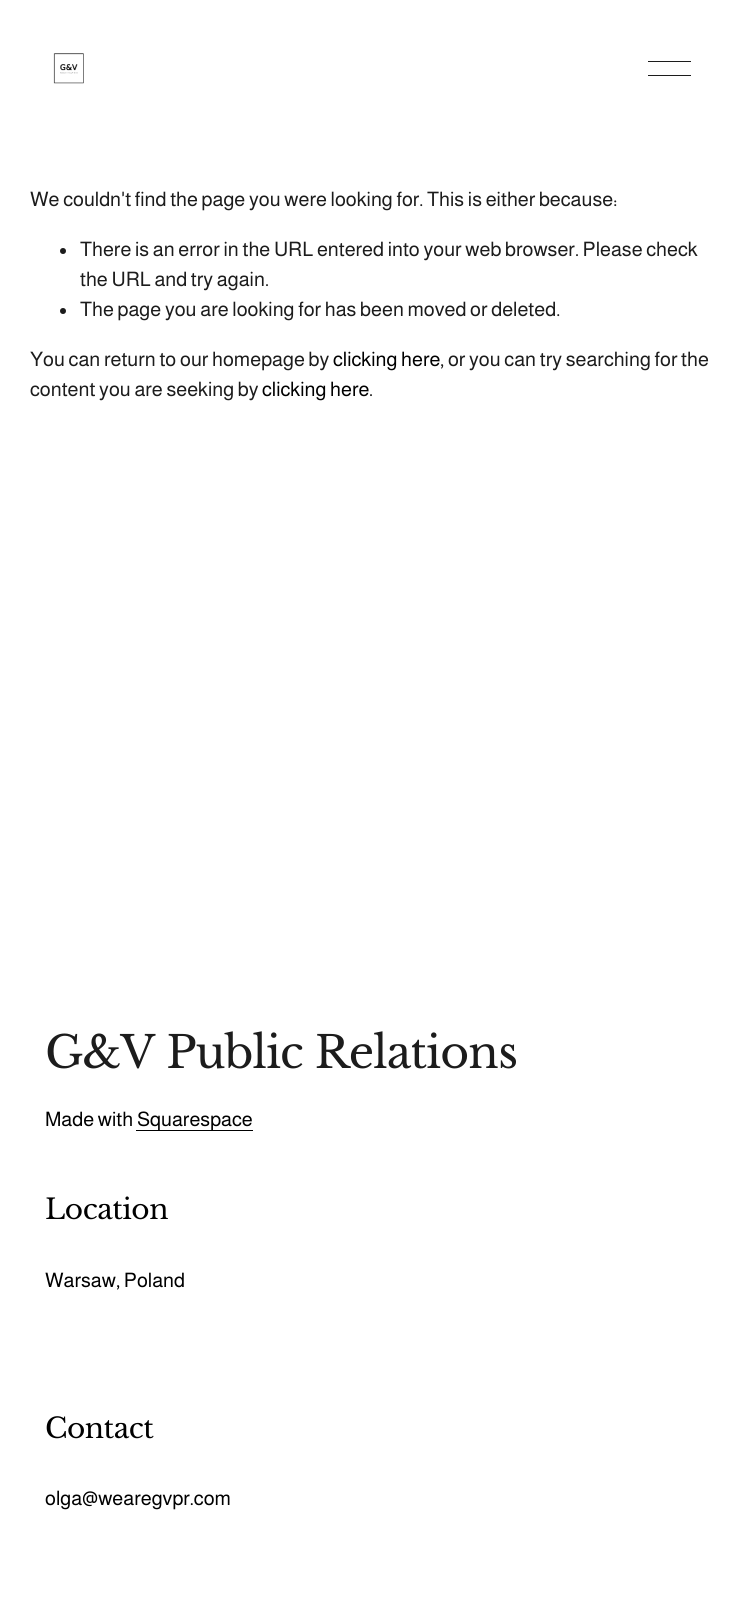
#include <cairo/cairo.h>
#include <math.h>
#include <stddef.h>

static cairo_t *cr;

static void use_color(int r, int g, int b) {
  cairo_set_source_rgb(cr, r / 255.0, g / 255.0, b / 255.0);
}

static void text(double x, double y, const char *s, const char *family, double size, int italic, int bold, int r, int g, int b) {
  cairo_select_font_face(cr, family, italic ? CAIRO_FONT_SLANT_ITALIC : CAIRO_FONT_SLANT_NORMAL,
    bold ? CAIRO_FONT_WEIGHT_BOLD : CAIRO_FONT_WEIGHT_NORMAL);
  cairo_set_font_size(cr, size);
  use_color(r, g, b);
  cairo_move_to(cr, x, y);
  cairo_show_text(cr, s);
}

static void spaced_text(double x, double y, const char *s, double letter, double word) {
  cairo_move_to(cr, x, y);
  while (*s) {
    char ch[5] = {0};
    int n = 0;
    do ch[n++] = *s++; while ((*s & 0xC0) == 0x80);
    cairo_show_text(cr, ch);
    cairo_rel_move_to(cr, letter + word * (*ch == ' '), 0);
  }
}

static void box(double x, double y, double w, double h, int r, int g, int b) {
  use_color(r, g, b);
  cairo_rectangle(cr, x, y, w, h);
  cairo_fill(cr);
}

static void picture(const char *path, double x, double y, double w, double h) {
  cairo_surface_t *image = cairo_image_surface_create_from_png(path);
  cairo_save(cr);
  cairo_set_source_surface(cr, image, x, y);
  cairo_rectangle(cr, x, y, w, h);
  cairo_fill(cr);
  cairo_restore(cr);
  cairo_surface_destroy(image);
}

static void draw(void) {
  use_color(255, 255, 255);
  cairo_paint(cr);
  picture("img_01.png", 53, 53, 31, 31);
  box(648, 61, 43, 1, 28, 28, 28);
  box(648, 75, 43, 1, 28, 28, 28);
  cairo_arc(cr, 63, 251, 3, 0, 2 * M_PI);
  cairo_fill(cr);
  cairo_arc(cr, 63, 311, 3, 0, 2 * M_PI);
  cairo_fill(cr);
  box(136, 1130, 117, 1, 0, 0, 0);
  text(30, 206, "We couldn't find the page you were looking for. This is either because:", "Almarai", 20, 0, 0, 28, 28, 28);
  text(80, 256, "There is an error in the URL entered into your web browser. Please check", "Almarai", 20, 0, 0, 28, 28, 28);
  text(80, 286, "the URL and try again.", "Almarai", 20, 0, 0, 28, 28, 28);
  text(80, 316, "The page you are looking for has been moved or deleted.", "Almarai", 20, 0, 0, 28, 28, 28);
  text(30, 366, "You can return to our homepage by", "Almarai", 20, 0, 0, 28, 28, 28);
  text(333, 366, "clicking here", "Almarai", 20, 0, 0, 0, 0, 0);
  text(440, 366, ", or you can try searching for the", "Almarai", 20, 0, 0, 28, 28, 28);
  text(30, 396, "content you are seeking by", "Almarai", 20, 0, 0, 28, 28, 28);
  text(262, 396, "clicking here", "Almarai", 20, 0, 0, 0, 0, 0);
  text(369, 396, ".", "Almarai", 20, 0, 0, 28, 28, 28);
  cairo_select_font_face(cr, "Libre Baskerville", CAIRO_FONT_SLANT_NORMAL, CAIRO_FONT_WEIGHT_NORMAL);
  cairo_set_font_size(cr, 44.25);
  spaced_text(45, 1068, "G&V Public Relations", -0.9, 0);
  text(45, 1126, "Made with", "Almarai", 20, 0, 0, 0, 0, 0);
  text(137, 1126, "Squarespace", "Almarai", 20, 0, 0, 0, 0, 0);
  cairo_select_font_face(cr, "Libre Baskerville", CAIRO_FONT_SLANT_NORMAL, CAIRO_FONT_WEIGHT_NORMAL);
  cairo_set_font_size(cr, 28);
  spaced_text(45, 1219, "Location", -0.5, 0);
  text(45, 1287, "Warsaw, Poland", "Almarai", 20, 0, 0, 0, 0, 0);
  cairo_select_font_face(cr, "Libre Baskerville", CAIRO_FONT_SLANT_NORMAL, CAIRO_FONT_WEIGHT_NORMAL);
  cairo_set_font_size(cr, 28);
  spaced_text(45, 1438, "Contact", -0.5, 0);
  text(45, 1505, "olga@wearegvpr.com", "Almarai", 20, 0, 0, 0, 0, 0);
}

int main(void) {
  cairo_surface_t *surface = cairo_image_surface_create(CAIRO_FORMAT_RGB24, 743, 1616);
  cr = cairo_create(surface);
  cairo_font_options_t *options = cairo_font_options_create();
  cairo_font_options_set_hint_metrics(options, CAIRO_HINT_METRICS_OFF);
  cairo_font_options_set_hint_style(options, CAIRO_HINT_STYLE_NONE);
  cairo_set_font_options(cr, options);
  cairo_set_miter_limit(cr, 4);
  draw();
  cairo_surface_write_to_png(surface, "out.png");
  cairo_font_options_destroy(options);
  cairo_destroy(cr);
  cairo_surface_destroy(surface);
  return 0;
}
